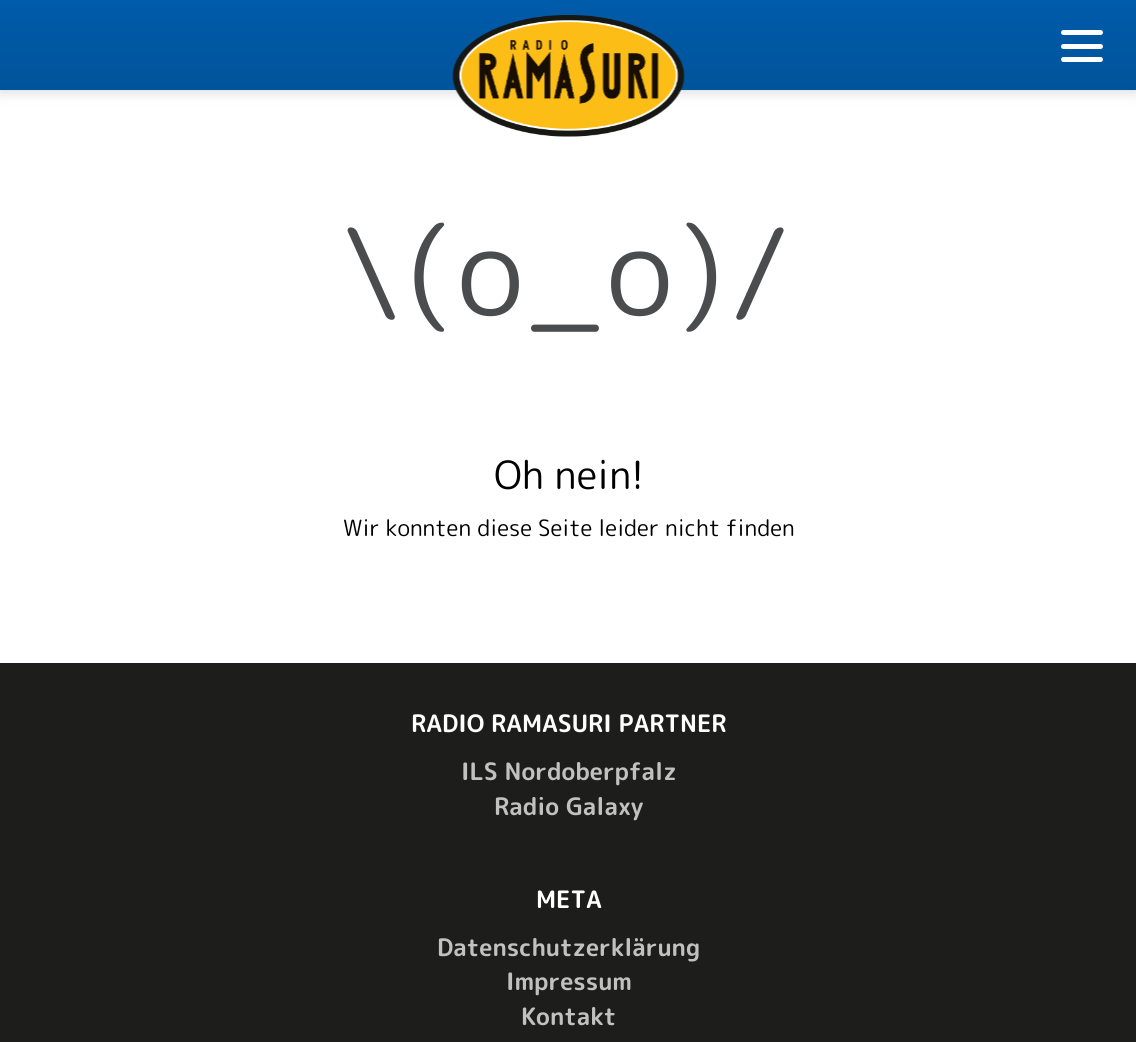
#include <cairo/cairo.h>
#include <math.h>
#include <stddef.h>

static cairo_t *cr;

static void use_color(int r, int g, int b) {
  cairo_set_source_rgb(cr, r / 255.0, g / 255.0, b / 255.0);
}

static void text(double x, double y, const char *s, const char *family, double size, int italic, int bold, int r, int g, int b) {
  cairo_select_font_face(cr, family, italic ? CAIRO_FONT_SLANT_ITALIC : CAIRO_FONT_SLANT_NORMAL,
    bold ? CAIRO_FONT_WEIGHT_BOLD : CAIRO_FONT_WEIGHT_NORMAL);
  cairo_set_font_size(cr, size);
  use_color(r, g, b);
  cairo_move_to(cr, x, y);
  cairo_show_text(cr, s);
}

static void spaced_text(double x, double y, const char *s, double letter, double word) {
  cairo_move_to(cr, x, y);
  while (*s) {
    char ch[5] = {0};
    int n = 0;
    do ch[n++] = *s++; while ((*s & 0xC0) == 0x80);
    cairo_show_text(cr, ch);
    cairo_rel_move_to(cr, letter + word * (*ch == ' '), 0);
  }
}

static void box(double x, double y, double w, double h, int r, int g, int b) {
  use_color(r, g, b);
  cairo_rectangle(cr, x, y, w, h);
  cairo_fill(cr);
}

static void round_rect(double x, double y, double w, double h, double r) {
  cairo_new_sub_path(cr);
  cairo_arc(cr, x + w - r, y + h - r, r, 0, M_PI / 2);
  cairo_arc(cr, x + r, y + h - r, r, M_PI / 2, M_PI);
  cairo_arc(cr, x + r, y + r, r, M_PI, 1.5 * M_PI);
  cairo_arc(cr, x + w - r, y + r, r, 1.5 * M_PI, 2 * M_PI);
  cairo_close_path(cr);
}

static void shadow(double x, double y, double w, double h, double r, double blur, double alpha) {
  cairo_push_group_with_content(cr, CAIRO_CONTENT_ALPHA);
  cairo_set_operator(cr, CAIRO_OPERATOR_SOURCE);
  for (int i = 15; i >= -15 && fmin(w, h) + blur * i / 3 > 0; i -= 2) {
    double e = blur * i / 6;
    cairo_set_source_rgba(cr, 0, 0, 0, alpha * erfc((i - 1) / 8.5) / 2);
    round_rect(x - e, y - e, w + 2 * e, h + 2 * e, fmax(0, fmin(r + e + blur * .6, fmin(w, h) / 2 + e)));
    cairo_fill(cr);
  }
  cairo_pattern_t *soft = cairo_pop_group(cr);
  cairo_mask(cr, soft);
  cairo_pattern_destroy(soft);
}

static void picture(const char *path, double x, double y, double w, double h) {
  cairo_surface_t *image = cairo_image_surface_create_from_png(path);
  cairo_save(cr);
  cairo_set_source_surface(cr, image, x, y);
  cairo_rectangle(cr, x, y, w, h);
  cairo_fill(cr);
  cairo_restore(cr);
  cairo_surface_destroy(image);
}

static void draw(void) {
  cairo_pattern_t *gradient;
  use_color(255, 255, 255);
  cairo_paint(cr);
  use_color(0, 0, 0);
  shadow(0, 0, 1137, 90, 0, 7.5, 0.2);
  gradient = cairo_pattern_create_linear(569, 0, 569, 90);
  cairo_pattern_add_color_stop_rgba(gradient, 0, 0, 0.357, 0.667, 1);
  cairo_pattern_add_color_stop_rgba(gradient, 1, 0, 0.329, 0.608, 1);
  cairo_set_source(cr, gradient);
  cairo_pattern_destroy(gradient);
  cairo_rectangle(cr, 0, 0, 1136, 90);
  cairo_fill(cr);
  picture("img_01.png", 452, 15, 233, 122);
  use_color(255, 255, 255);
  round_rect(1061, 30, 42, 5, 2.5);
  cairo_fill(cr);
  round_rect(1061, 44, 42, 5, 2.5);
  cairo_fill(cr);
  round_rect(1061, 57, 42, 5, 2.5);
  cairo_fill(cr);
  box(0, 663, 1136, 379, 29, 29, 27);
  cairo_select_font_face(cr, "Rounded Mplus 1c", CAIRO_FONT_SLANT_NORMAL, CAIRO_FONT_WEIGHT_NORMAL);
  cairo_set_font_size(cr, 120);
  use_color(75, 76, 77);
  spaced_text(341, 315, "\\(o_o)/", 7.5, 0);
  text(494, 489, "Oh nein!", "Rounded Mplus 1c", 39, 0, 0, 0, 0, 0);
  text(343, 536, "Wir konnten diese Seite leider nicht finden", "Rounded Mplus 1c", 22.5, 0, 0, 0, 0, 0);
  text(411, 732, "RADIO RAMASURI PARTNER", "Rounded Mplus 1c", 24, 0, 1, 255, 255, 255);
  text(461, 780, "ILS Nordoberpfalz", "Rounded Mplus 1c", 24, 0, 1, 193, 193, 193);
  text(494, 815, "Radio Galaxy", "Rounded Mplus 1c", 24, 0, 1, 193, 193, 193);
  text(536, 908, "META", "Rounded Mplus 1c", 24, 0, 1, 255, 255, 255);
  text(437, 956, "Datenschutzerklärung", "Rounded Mplus 1c", 24, 0, 1, 193, 193, 193);
  text(506, 990, "Impressum", "Rounded Mplus 1c", 24, 0, 1, 193, 193, 193);
  text(521, 1025, "Kontakt", "Rounded Mplus 1c", 24, 0, 1, 193, 193, 193);
}

int main(void) {
  cairo_surface_t *surface = cairo_image_surface_create(CAIRO_FORMAT_RGB24, 1136, 1042);
  cr = cairo_create(surface);
  cairo_font_options_t *options = cairo_font_options_create();
  cairo_font_options_set_hint_metrics(options, CAIRO_HINT_METRICS_OFF);
  cairo_font_options_set_hint_style(options, CAIRO_HINT_STYLE_NONE);
  cairo_set_font_options(cr, options);
  cairo_set_miter_limit(cr, 4);
  draw();
  cairo_surface_write_to_png(surface, "out.png");
  cairo_font_options_destroy(options);
  cairo_destroy(cr);
  cairo_surface_destroy(surface);
  return 0;
}
